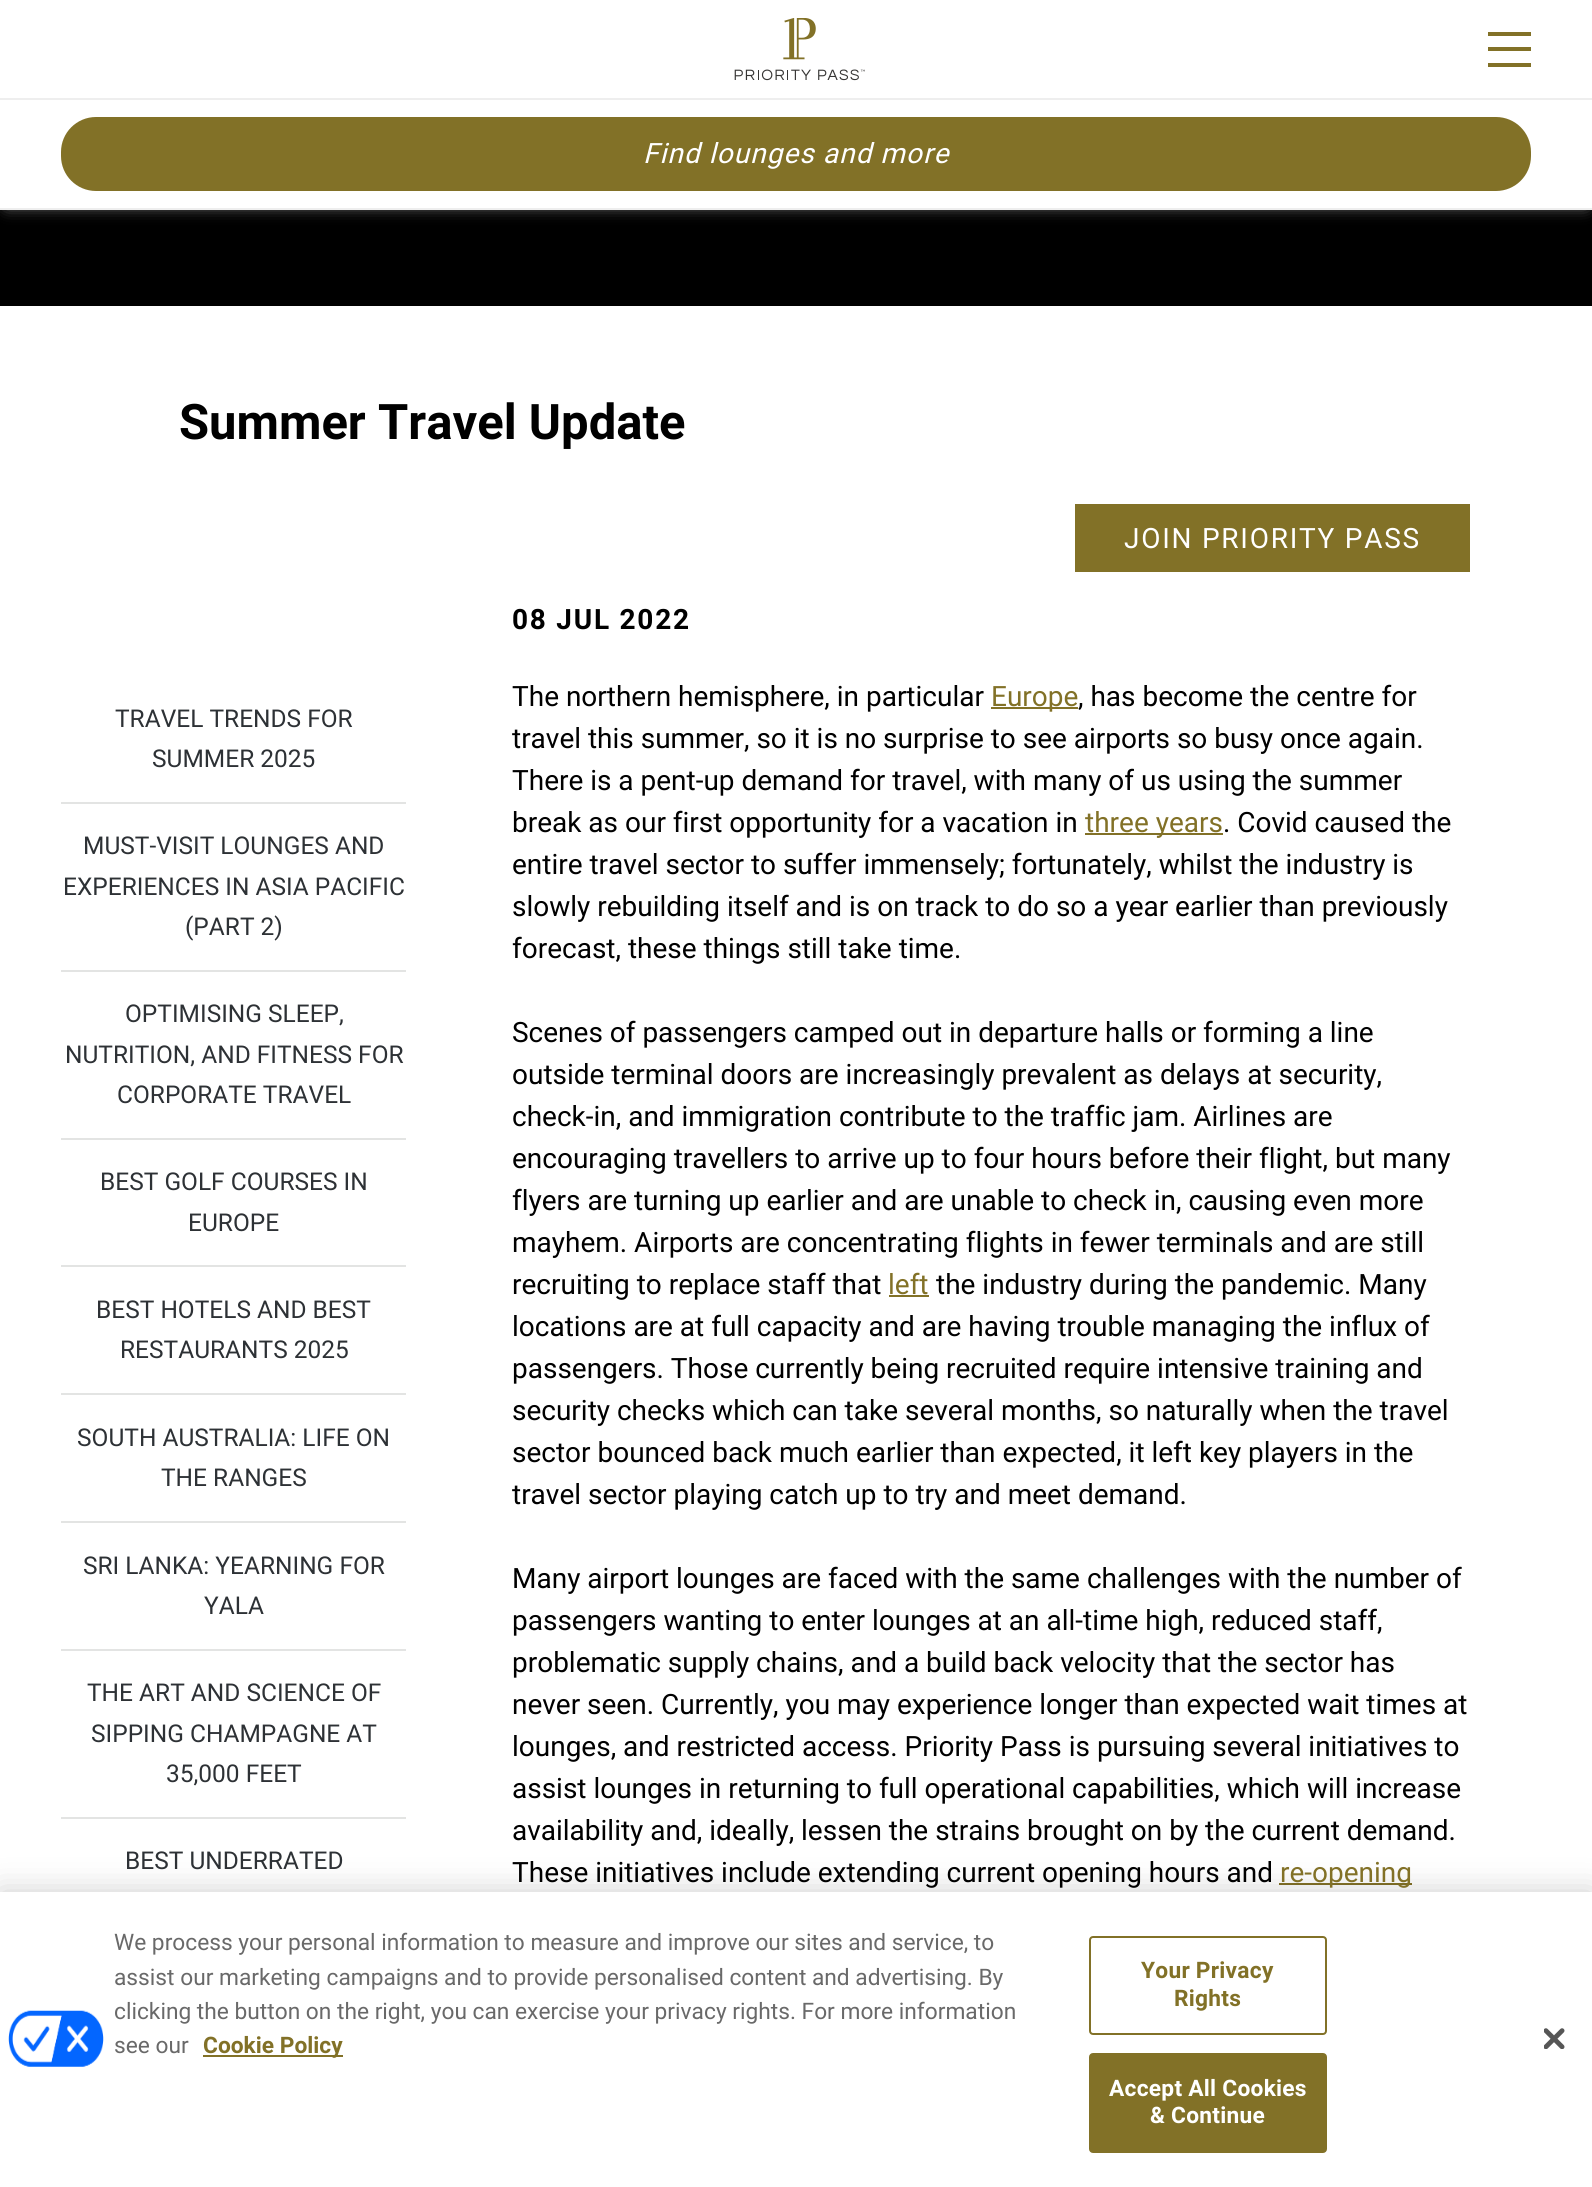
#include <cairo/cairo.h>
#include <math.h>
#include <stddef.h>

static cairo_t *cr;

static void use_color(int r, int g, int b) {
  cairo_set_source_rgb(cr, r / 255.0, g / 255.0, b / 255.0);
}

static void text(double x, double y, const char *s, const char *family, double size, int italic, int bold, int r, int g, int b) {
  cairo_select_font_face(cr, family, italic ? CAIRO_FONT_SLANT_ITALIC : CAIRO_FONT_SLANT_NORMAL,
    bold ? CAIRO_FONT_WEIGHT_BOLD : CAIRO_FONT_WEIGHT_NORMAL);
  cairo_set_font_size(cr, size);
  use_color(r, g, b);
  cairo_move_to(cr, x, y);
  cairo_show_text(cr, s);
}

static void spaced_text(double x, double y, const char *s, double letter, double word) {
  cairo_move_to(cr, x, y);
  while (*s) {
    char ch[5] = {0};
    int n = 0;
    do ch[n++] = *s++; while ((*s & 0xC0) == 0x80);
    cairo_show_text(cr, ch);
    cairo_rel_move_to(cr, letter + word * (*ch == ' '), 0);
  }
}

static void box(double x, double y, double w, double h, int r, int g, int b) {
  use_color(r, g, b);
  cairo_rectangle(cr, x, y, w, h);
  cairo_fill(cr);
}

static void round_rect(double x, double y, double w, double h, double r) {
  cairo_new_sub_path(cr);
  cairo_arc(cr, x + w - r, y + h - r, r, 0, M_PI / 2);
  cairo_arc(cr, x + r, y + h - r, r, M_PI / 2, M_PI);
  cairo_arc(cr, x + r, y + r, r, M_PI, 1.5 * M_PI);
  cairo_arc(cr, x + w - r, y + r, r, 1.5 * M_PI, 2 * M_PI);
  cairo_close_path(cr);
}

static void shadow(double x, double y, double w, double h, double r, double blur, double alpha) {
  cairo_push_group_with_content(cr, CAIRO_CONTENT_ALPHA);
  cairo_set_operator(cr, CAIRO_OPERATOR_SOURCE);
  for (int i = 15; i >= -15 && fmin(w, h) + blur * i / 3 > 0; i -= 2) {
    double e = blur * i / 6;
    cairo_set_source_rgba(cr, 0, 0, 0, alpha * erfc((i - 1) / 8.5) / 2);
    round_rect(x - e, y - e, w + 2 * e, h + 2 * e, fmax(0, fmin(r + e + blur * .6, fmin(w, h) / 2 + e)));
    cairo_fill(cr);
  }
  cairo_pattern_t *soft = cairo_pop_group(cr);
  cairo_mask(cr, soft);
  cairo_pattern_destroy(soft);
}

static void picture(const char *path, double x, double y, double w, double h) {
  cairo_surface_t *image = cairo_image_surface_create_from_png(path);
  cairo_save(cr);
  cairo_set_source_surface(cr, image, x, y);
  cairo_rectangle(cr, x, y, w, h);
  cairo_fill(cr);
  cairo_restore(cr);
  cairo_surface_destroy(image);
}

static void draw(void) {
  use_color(255, 255, 255);
  cairo_paint(cr);
  box(0, 210, 1592, 96, 0, 0, 0);
  use_color(169, 169, 169);
  shadow(7, 9, 1579, 196, 0, 8, 1);
  box(0, 0, 1592, 208, 255, 255, 255);
  box(0, 208, 1592, 2, 238, 238, 238);
  picture("img_01.png", 734, 18, 131, 63);
  box(1488, 32, 43, 4, 130, 113, 39);
  box(1488, 47, 43, 4, 130, 113, 39);
  box(1488, 63, 43, 4, 130, 113, 39);
  box(0, 98, 1592, 2, 238, 238, 238);
  use_color(130, 113, 39);
  round_rect(61, 117, 1470, 74, 35);
  cairo_fill(cr);
  box(1075, 504, 395, 68, 130, 113, 39);
  box(61, 802, 345, 2, 227, 228, 227);
  box(61, 970, 345, 2, 227, 228, 227);
  box(61, 1138, 345, 2, 227, 228, 227);
  box(61, 1265, 345, 2, 227, 228, 227);
  box(61, 1393, 345, 2, 227, 228, 227);
  box(61, 1521, 345, 2, 227, 228, 227);
  box(61, 1649, 345, 2, 227, 228, 227);
  box(61, 1817, 345, 2, 227, 228, 227);
  box(991, 707, 87, 2, 130, 113, 39);
  box(1085, 833, 138, 2, 130, 113, 39);
  box(889, 1295, 40, 2, 130, 113, 39);
  box(1279, 1883, 133, 2, 130, 113, 39);
  use_color(0, 0, 0);
  shadow(0, 1892, 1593, 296, 0, 16, 0.2);
  box(0, 1892, 1592, 295, 255, 255, 255);
  picture("img_02.png", 8, 2010, 96, 57);
  box(203, 2055, 140, 2, 130, 113, 39);
  round_rect(1090, 1937, 236, 97, 3);
  cairo_stroke(cr);
  round_rect(1090, 2054, 236, 98, 3);
  cairo_fill_preserve(cr);
  cairo_stroke(cr);
  picture("img_03.png", 1544, 2028, 21, 21);
  cairo_select_font_face(cr, "Roboto", CAIRO_FONT_SLANT_ITALIC, CAIRO_FONT_WEIGHT_NORMAL);
  cairo_set_font_size(cr, 28);
  use_color(255, 255, 255);
  spaced_text(643, 163, "Find lounges and more", 1.05, 0);
  text(179, 439, "Summer Travel Update", "Roboto", 49, 0, 1, 0, 0, 0);
  cairo_select_font_face(cr, "Roboto", CAIRO_FONT_SLANT_NORMAL, CAIRO_FONT_WEIGHT_NORMAL);
  cairo_set_font_size(cr, 28);
  use_color(255, 255, 255);
  spaced_text(1124, 548, "JOIN PRIORITY PASS", 1.75, 0);
  cairo_select_font_face(cr, "Roboto", CAIRO_FONT_SLANT_NORMAL, CAIRO_FONT_WEIGHT_BOLD);
  use_color(0, 0, 0);
  spaced_text(512, 629, "08 JUL 2022", 1.75, 0);
  text(115, 727, "TRAVEL TRENDS FOR", "Roboto", 24.5, 0, 0, 45, 49, 53);
  text(152, 767, "SUMMER 2025", "Roboto", 24.5, 0, 0, 45, 49, 53);
  text(83, 854, "MUST-VISIT LOUNGES AND", "Roboto", 24.5, 0, 0, 45, 49, 53);
  text(63, 895, "EXPERIENCES IN ASIA PACIFIC", "Roboto", 24.5, 0, 0, 45, 49, 53);
  text(185, 935, "(PART 2)", "Roboto", 24.5, 0, 0, 45, 49, 53);
  text(125, 1022, "OPTIMISING SLEEP,", "Roboto", 24.5, 0, 0, 45, 49, 53);
  text(65, 1063, "NUTRITION, AND FITNESS FOR", "Roboto", 24.5, 0, 0, 45, 49, 53);
  text(117, 1103, "CORPORATE TRAVEL", "Roboto", 24.5, 0, 0, 45, 49, 53);
  text(100, 1190, "BEST GOLF COURSES IN", "Roboto", 24.5, 0, 0, 45, 49, 53);
  text(188, 1231, "EUROPE", "Roboto", 24.5, 0, 0, 45, 49, 53);
  text(96, 1318, "BEST HOTELS AND BEST", "Roboto", 24.5, 0, 0, 45, 49, 53);
  text(120, 1358, "RESTAURANTS 2025", "Roboto", 24.5, 0, 0, 45, 49, 53);
  text(77, 1446, "SOUTH AUSTRALIA: LIFE ON", "Roboto", 24.5, 0, 0, 45, 49, 53);
  text(161, 1486, "THE RANGES", "Roboto", 24.5, 0, 0, 45, 49, 53);
  text(83, 1574, "SRI LANKA: YEARNING FOR", "Roboto", 24.5, 0, 0, 45, 49, 53);
  text(204, 1614, "YALA", "Roboto", 24.5, 0, 0, 45, 49, 53);
  text(87, 1701, "THE ART AND SCIENCE OF", "Roboto", 24.5, 0, 0, 45, 49, 53);
  text(91, 1742, "SIPPING CHAMPAGNE AT", "Roboto", 24.5, 0, 0, 45, 49, 53);
  text(166, 1782, "35,000 FEET", "Roboto", 24.5, 0, 0, 45, 49, 53);
  text(125, 1869, "BEST UNDERRATED", "Roboto", 24.5, 0, 0, 45, 49, 53);
  text(512, 706, "The northern hemisphere, in particular", "Roboto", 28, 0, 0, 0, 0, 0);
  text(991, 706, "Europe", "Roboto", 28, 0, 0, 130, 113, 39);
  text(1078, 706, ", has become the centre for", "Roboto", 28, 0, 0, 0, 0, 0);
  text(512, 748, "travel this summer, so it is no surprise to see airports so busy once again.", "Roboto", 28, 0, 0, 0, 0, 0);
  text(512, 790, "There is a pent-up demand for travel, with many of us using the summer", "Roboto", 28, 0, 0, 0, 0, 0);
  text(512, 832, "break as our first opportunity for a vacation in", "Roboto", 28, 0, 0, 0, 0, 0);
  text(1085, 832, "three years", "Roboto", 28, 0, 0, 130, 113, 39);
  text(1223, 832, ". Covid caused the", "Roboto", 28, 0, 0, 0, 0, 0);
  text(512, 874, "entire travel sector to suffer immensely; fortunately, whilst the industry is", "Roboto", 28, 0, 0, 0, 0, 0);
  text(512, 916, "slowly rebuilding itself and is on track to do so a year earlier than previously", "Roboto", 28, 0, 0, 0, 0, 0);
  text(512, 958, "forecast, these things still take time.", "Roboto", 28, 0, 0, 0, 0, 0);
  text(512, 1042, "Scenes of passengers camped out in departure halls or forming a line", "Roboto", 28, 0, 0, 0, 0, 0);
  text(512, 1084, "outside terminal doors are increasingly prevalent as delays at security,", "Roboto", 28, 0, 0, 0, 0, 0);
  text(512, 1126, "check-in, and immigration contribute to the traffic jam. Airlines are", "Roboto", 28, 0, 0, 0, 0, 0);
  text(512, 1168, "encouraging travellers to arrive up to four hours before their flight, but many", "Roboto", 28, 0, 0, 0, 0, 0);
  text(512, 1210, "flyers are turning up earlier and are unable to check in, causing even more", "Roboto", 28, 0, 0, 0, 0, 0);
  text(512, 1252, "mayhem. Airports are concentrating flights in fewer terminals and are still", "Roboto", 28, 0, 0, 0, 0, 0);
  text(512, 1294, "recruiting to replace staff that", "Roboto", 28, 0, 0, 0, 0, 0);
  text(888, 1294, "left", "Roboto", 28, 0, 0, 130, 113, 39);
  text(936, 1294, "the industry during the pandemic. Many", "Roboto", 28, 0, 0, 0, 0, 0);
  text(512, 1336, "locations are at full capacity and are having trouble managing the influx of", "Roboto", 28, 0, 0, 0, 0, 0);
  text(512, 1378, "passengers. Those currently being recruited require intensive training and", "Roboto", 28, 0, 0, 0, 0, 0);
  text(512, 1420, "security checks which can take several months, so naturally when the travel", "Roboto", 28, 0, 0, 0, 0, 0);
  text(512, 1462, "sector bounced back much earlier than expected, it left key players in the", "Roboto", 28, 0, 0, 0, 0, 0);
  text(512, 1504, "travel sector playing catch up to try and meet demand.", "Roboto", 28, 0, 0, 0, 0, 0);
  text(512, 1588, "Many airport lounges are faced with the same challenges with the number of", "Roboto", 28, 0, 0, 0, 0, 0);
  text(512, 1630, "passengers wanting to enter lounges at an all-time high, reduced staff,", "Roboto", 28, 0, 0, 0, 0, 0);
  text(512, 1672, "problematic supply chains, and a build back velocity that the sector has", "Roboto", 28, 0, 0, 0, 0, 0);
  text(512, 1714, "never seen. Currently, you may experience longer than expected wait times at", "Roboto", 28, 0, 0, 0, 0, 0);
  text(512, 1756, "lounges, and restricted access. Priority Pass is pursuing several initiatives to", "Roboto", 28, 0, 0, 0, 0, 0);
  text(512, 1798, "assist lounges in returning to full operational capabilities, which will increase", "Roboto", 28, 0, 0, 0, 0, 0);
  text(512, 1840, "availability and, ideally, lessen the strains brought on by the current demand.", "Roboto", 28, 0, 0, 0, 0, 0);
  text(512, 1882, "These initiatives include extending current opening hours and", "Roboto", 28, 0, 0, 0, 0, 0);
  text(1280, 1882, "re-opening", "Roboto", 28, 0, 0, 130, 113, 39);
  text(114, 1950, "We process your personal information to measure and improve our sites and service, to", "Roboto", 22.75, 0, 0, 105, 105, 105);
  text(114, 1985, "assist our marketing campaigns and to provide personalised content and advertising. By", "Roboto", 22.75, 0, 0, 105, 105, 105);
  text(114, 2019, "clicking the button on the right, you can exercise your privacy rights. For more information", "Roboto", 22.75, 0, 0, 105, 105, 105);
  text(114, 2053, "see our", "Roboto", 22.75, 0, 0, 105, 105, 105);
  text(203, 2053, "Cookie Policy", "Roboto", 22.75, 0, 1, 130, 113, 39);
  spaced_text(1141, 1978, "Your Privacy", 0.25, 0);
  spaced_text(1174, 2006, "Rights", 0.25, 0);
  use_color(255, 255, 255);
  spaced_text(1109, 2096, "Accept All Cookies", 0.25, 0);
  spaced_text(1150, 2123, "& Continue", 0.25, 0);
}

int main(void) {
  cairo_surface_t *surface = cairo_image_surface_create(CAIRO_FORMAT_RGB24, 1592, 2187);
  cr = cairo_create(surface);
  cairo_font_options_t *options = cairo_font_options_create();
  cairo_font_options_set_hint_metrics(options, CAIRO_HINT_METRICS_OFF);
  cairo_font_options_set_hint_style(options, CAIRO_HINT_STYLE_NONE);
  cairo_set_font_options(cr, options);
  cairo_set_miter_limit(cr, 4);
  draw();
  cairo_surface_write_to_png(surface, "out.png");
  cairo_font_options_destroy(options);
  cairo_destroy(cr);
  cairo_surface_destroy(surface);
  return 0;
}
